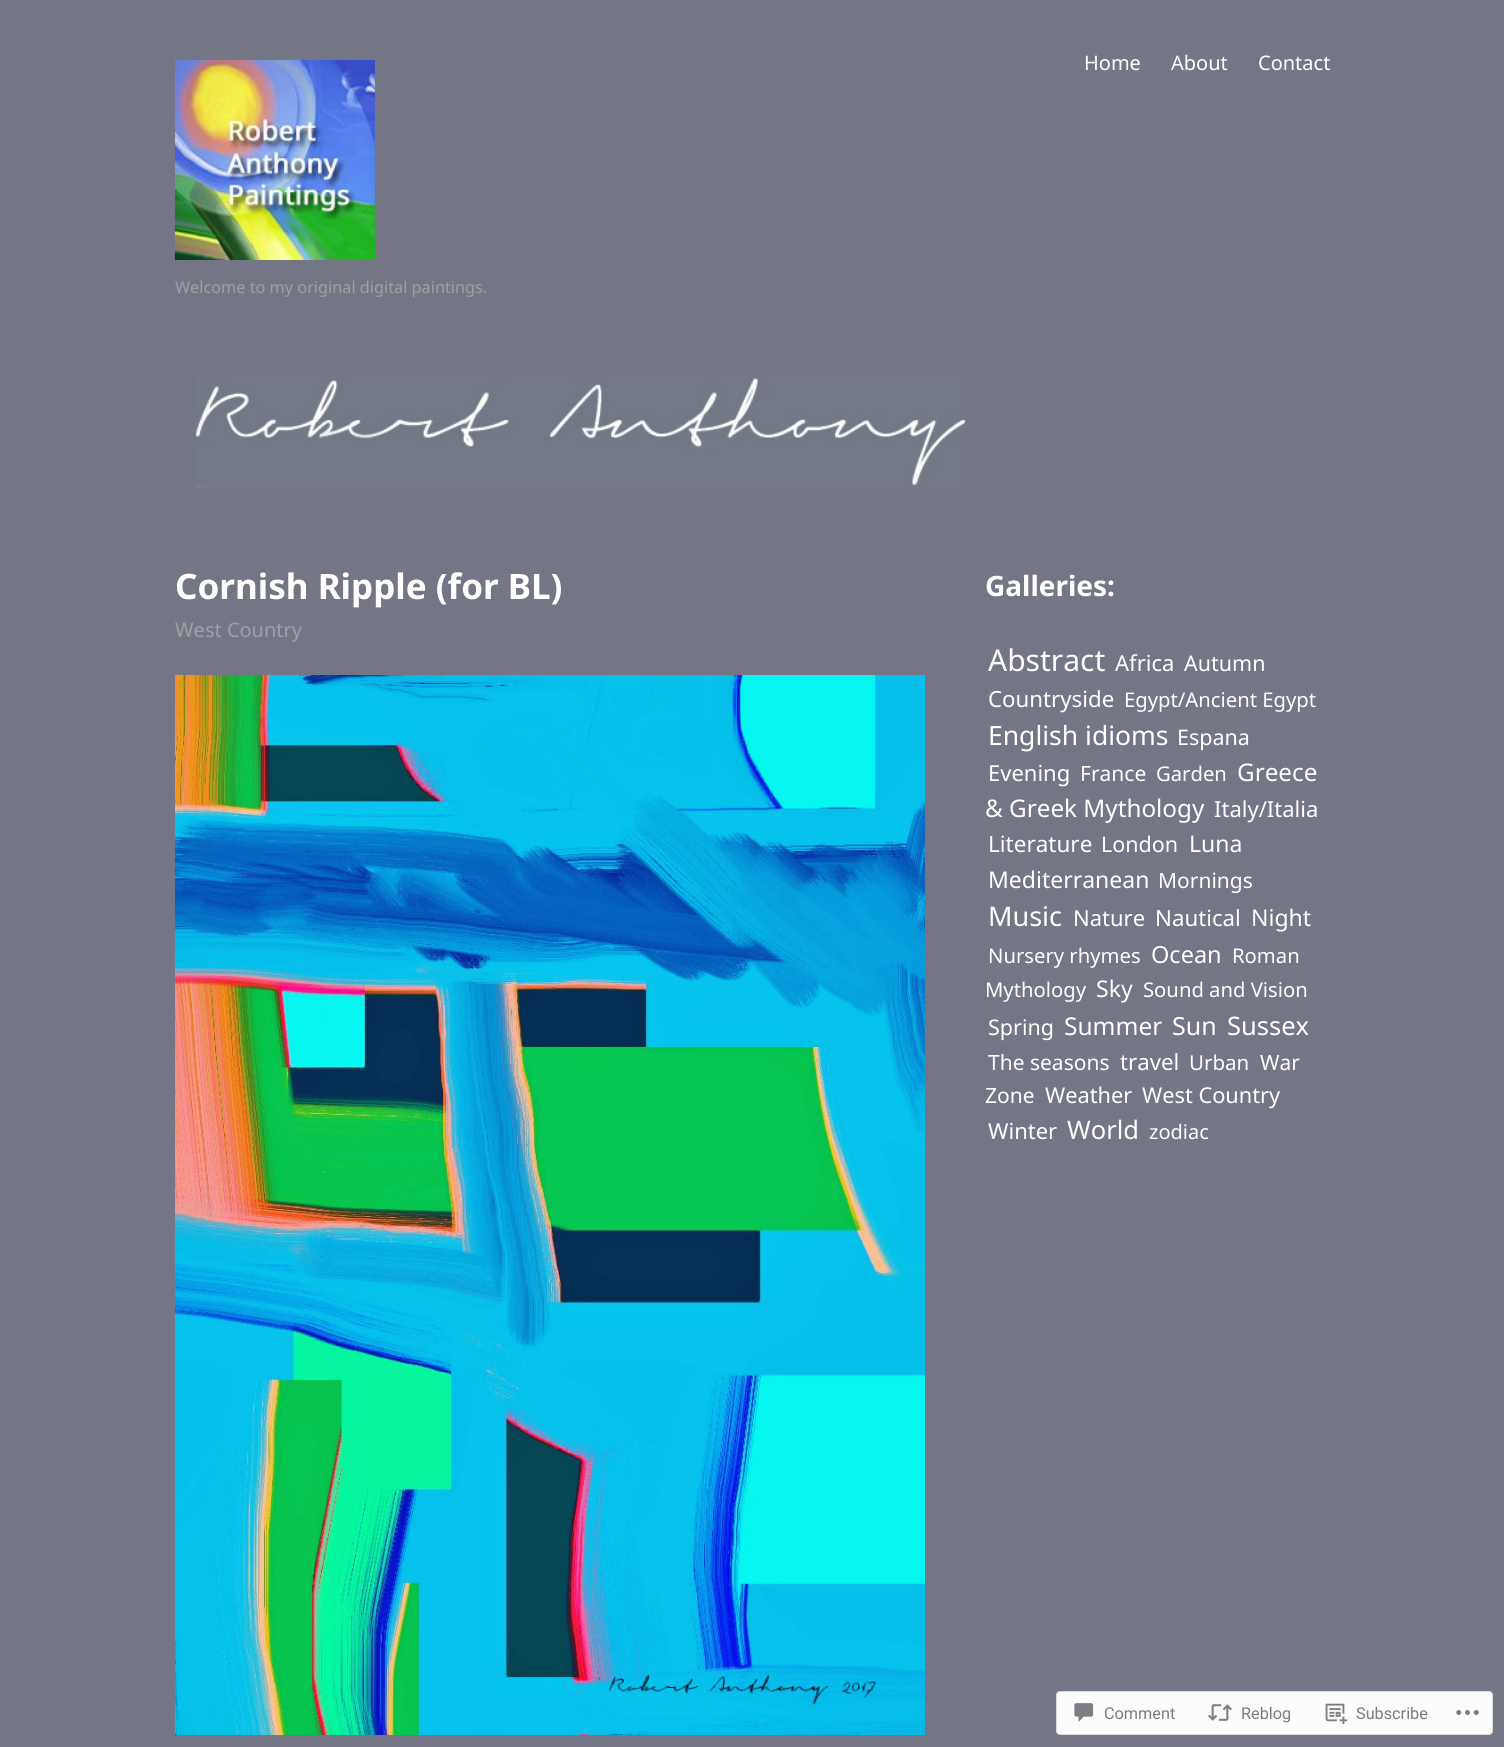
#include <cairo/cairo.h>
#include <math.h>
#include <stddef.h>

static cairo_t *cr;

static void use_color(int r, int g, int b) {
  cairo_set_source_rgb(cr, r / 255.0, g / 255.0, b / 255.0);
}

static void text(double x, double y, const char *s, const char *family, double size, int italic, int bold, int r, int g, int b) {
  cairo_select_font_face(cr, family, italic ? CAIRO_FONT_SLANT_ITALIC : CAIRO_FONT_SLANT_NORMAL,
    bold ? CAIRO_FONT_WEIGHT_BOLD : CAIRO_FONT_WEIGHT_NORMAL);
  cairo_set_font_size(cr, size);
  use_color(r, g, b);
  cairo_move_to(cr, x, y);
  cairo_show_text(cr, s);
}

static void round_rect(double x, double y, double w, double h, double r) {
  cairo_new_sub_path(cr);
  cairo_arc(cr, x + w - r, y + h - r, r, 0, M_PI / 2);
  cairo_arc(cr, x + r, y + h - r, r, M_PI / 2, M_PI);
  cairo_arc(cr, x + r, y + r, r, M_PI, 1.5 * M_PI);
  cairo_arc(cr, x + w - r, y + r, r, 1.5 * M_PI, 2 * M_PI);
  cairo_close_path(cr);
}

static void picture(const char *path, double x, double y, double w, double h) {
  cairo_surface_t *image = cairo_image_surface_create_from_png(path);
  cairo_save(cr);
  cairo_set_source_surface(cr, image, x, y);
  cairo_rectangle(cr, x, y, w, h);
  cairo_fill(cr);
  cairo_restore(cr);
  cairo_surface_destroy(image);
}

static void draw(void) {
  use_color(116, 118, 133);
  cairo_paint(cr);
  picture("img_01.png", 175, 60, 200, 200);
  picture("img_02.png", 195, 377, 771, 111);
  picture("img_03.png", 175, 675, 750, 1060);
  use_color(252, 252, 253);
  round_rect(1056.5, 1691.5, 436, 43, 3.5);
  cairo_fill_preserve(cr);
  use_color(218, 218, 220);
  cairo_set_line_width(cr, 1);
  cairo_stroke(cr);
  picture("img_04.png", 1074, 1703, 20, 19);
  picture("img_05.png", 1208, 1704, 24, 17);
  picture("img_06.png", 1325, 1703, 23, 22);
  picture("img_07.png", 1456, 1710, 23, 5);
  text(1084, 70, "Home", "Noto Sans", 20, 0, 0, 255, 255, 255);
  text(1171, 70, "About", "Noto Sans", 20, 0, 0, 255, 255, 255);
  text(1258, 70, "Contact", "Noto Sans", 20, 0, 0, 255, 255, 255);
  text(175, 293, "Welcome to my original digital paintings.", "Noto Sans", 16.25, 0, 0, 160, 160, 160);
  text(175, 599, "Cornish Ripple (for BL)", "Noto Sans", 35, 0, 1, 255, 255, 255);
  text(175, 637, "West Country", "Noto Sans", 20, 0, 0, 160, 160, 160);
  text(985, 596, "Galleries:", "Noto Sans", 28, 0, 1, 255, 255, 255);
  text(988, 671, "Abstract", "Noto Sans", 30, 0, 0, 255, 255, 255);
  text(1115, 671, "Africa", "Noto Sans", 22, 0, 0, 255, 255, 255);
  text(1184, 671, "Autumn", "Noto Sans", 21.5, 0, 0, 255, 255, 255);
  text(988, 707, "Countryside", "Noto Sans", 22.25, 0, 0, 255, 255, 255);
  text(1124, 707, "Egypt/Ancient Egypt", "Noto Sans", 20.25, 0, 0, 255, 255, 255);
  text(988, 745, "English idioms", "Noto Sans", 26.5, 0, 0, 255, 255, 255);
  text(1177, 745, "Espana", "Noto Sans", 21.5, 0, 0, 255, 255, 255);
  text(988, 781, "Evening", "Noto Sans", 22, 0, 0, 255, 255, 255);
  text(1080, 781, "France", "Noto Sans", 21, 0, 0, 255, 255, 255);
  text(1156, 781, "Garden", "Noto Sans", 20.25, 0, 0, 255, 255, 255);
  text(1237, 781, "Greece", "Noto Sans", 24.25, 0, 0, 255, 255, 255);
  text(985, 817, "& Greek Mythology", "Noto Sans", 24.25, 0, 0, 255, 255, 255);
  text(1214, 817, "Italy/Italia", "Noto Sans", 22, 0, 0, 255, 255, 255);
  text(988, 852, "Literature", "Noto Sans", 22.5, 0, 0, 255, 255, 255);
  text(1101, 852, "London", "Noto Sans", 21.5, 0, 0, 255, 255, 255);
  text(1189, 852, "Luna", "Noto Sans", 23, 0, 0, 255, 255, 255);
  text(988, 888, "Mediterranean", "Noto Sans", 23, 0, 0, 255, 255, 255);
  text(1158, 888, "Mornings", "Noto Sans", 21, 0, 0, 255, 255, 255);
  text(988, 926, "Music", "Noto Sans", 27, 0, 0, 255, 255, 255);
  text(1073, 926, "Nature", "Noto Sans", 22, 0, 0, 255, 255, 255);
  text(1155, 926, "Nautical", "Noto Sans", 22.25, 0, 0, 255, 255, 255);
  text(1251, 926, "Night", "Noto Sans", 23, 0, 0, 255, 255, 255);
  text(988, 963, "Nursery rhymes", "Noto Sans", 20.25, 0, 0, 255, 255, 255);
  text(1151, 963, "Ocean", "Noto Sans", 23.5, 0, 0, 255, 255, 255);
  text(1232, 963, "Roman", "Noto Sans", 20.25, 0, 0, 255, 255, 255);
  text(985, 997, "Mythology", "Noto Sans", 20.25, 0, 0, 255, 255, 255);
  text(1096, 997, "Sky", "Noto Sans", 23, 0, 0, 255, 255, 255);
  text(1143, 997, "Sound and Vision", "Noto Sans", 20.25, 0, 0, 255, 255, 255);
  text(988, 1035, "Spring", "Noto Sans", 21.5, 0, 0, 255, 255, 255);
  text(1064, 1035, "Summer", "Noto Sans", 24.5, 0, 0, 255, 255, 255);
  text(1172, 1035, "Sun", "Noto Sans", 25, 0, 0, 255, 255, 255);
  text(1227, 1035, "Sussex", "Noto Sans", 25.5, 0, 0, 255, 255, 255);
  text(988, 1070, "The seasons", "Noto Sans", 21, 0, 0, 255, 255, 255);
  text(1120, 1070, "travel", "Noto Sans", 22.25, 0, 0, 255, 255, 255);
  text(1189, 1070, "Urban", "Noto Sans", 20.5, 0, 0, 255, 255, 255);
  text(1260, 1070, "War", "Noto Sans", 21, 0, 0, 255, 255, 255);
  text(985, 1103, "Zone", "Noto Sans", 21, 0, 0, 255, 255, 255);
  text(1045, 1103, "Weather", "Noto Sans", 21.75, 0, 0, 255, 255, 255);
  text(1142, 1103, "West Country", "Noto Sans", 21.75, 0, 0, 255, 255, 255);
  text(988, 1139, "Winter", "Noto Sans", 22, 0, 0, 255, 255, 255);
  text(1067, 1139, "World", "Noto Sans", 25.5, 0, 0, 255, 255, 255);
  text(1149, 1139, "zodiac", "Noto Sans", 20, 0, 0, 255, 255, 255);
  text(1104, 1719, "Comment", "Roboto", 16.25, 0, 0, 120, 124, 130);
  text(1241, 1719, "Reblog", "Roboto", 16.25, 0, 0, 120, 124, 130);
  text(1356, 1719, "Subscribe", "Roboto", 16.25, 0, 0, 120, 124, 130);
}

int main(void) {
  cairo_surface_t *surface = cairo_image_surface_create(CAIRO_FORMAT_RGB24, 1504, 1747);
  cr = cairo_create(surface);
  cairo_font_options_t *options = cairo_font_options_create();
  cairo_font_options_set_hint_metrics(options, CAIRO_HINT_METRICS_OFF);
  cairo_font_options_set_hint_style(options, CAIRO_HINT_STYLE_NONE);
  cairo_set_font_options(cr, options);
  cairo_set_miter_limit(cr, 4);
  draw();
  cairo_surface_write_to_png(surface, "out.png");
  cairo_font_options_destroy(options);
  cairo_destroy(cr);
  cairo_surface_destroy(surface);
  return 0;
}
